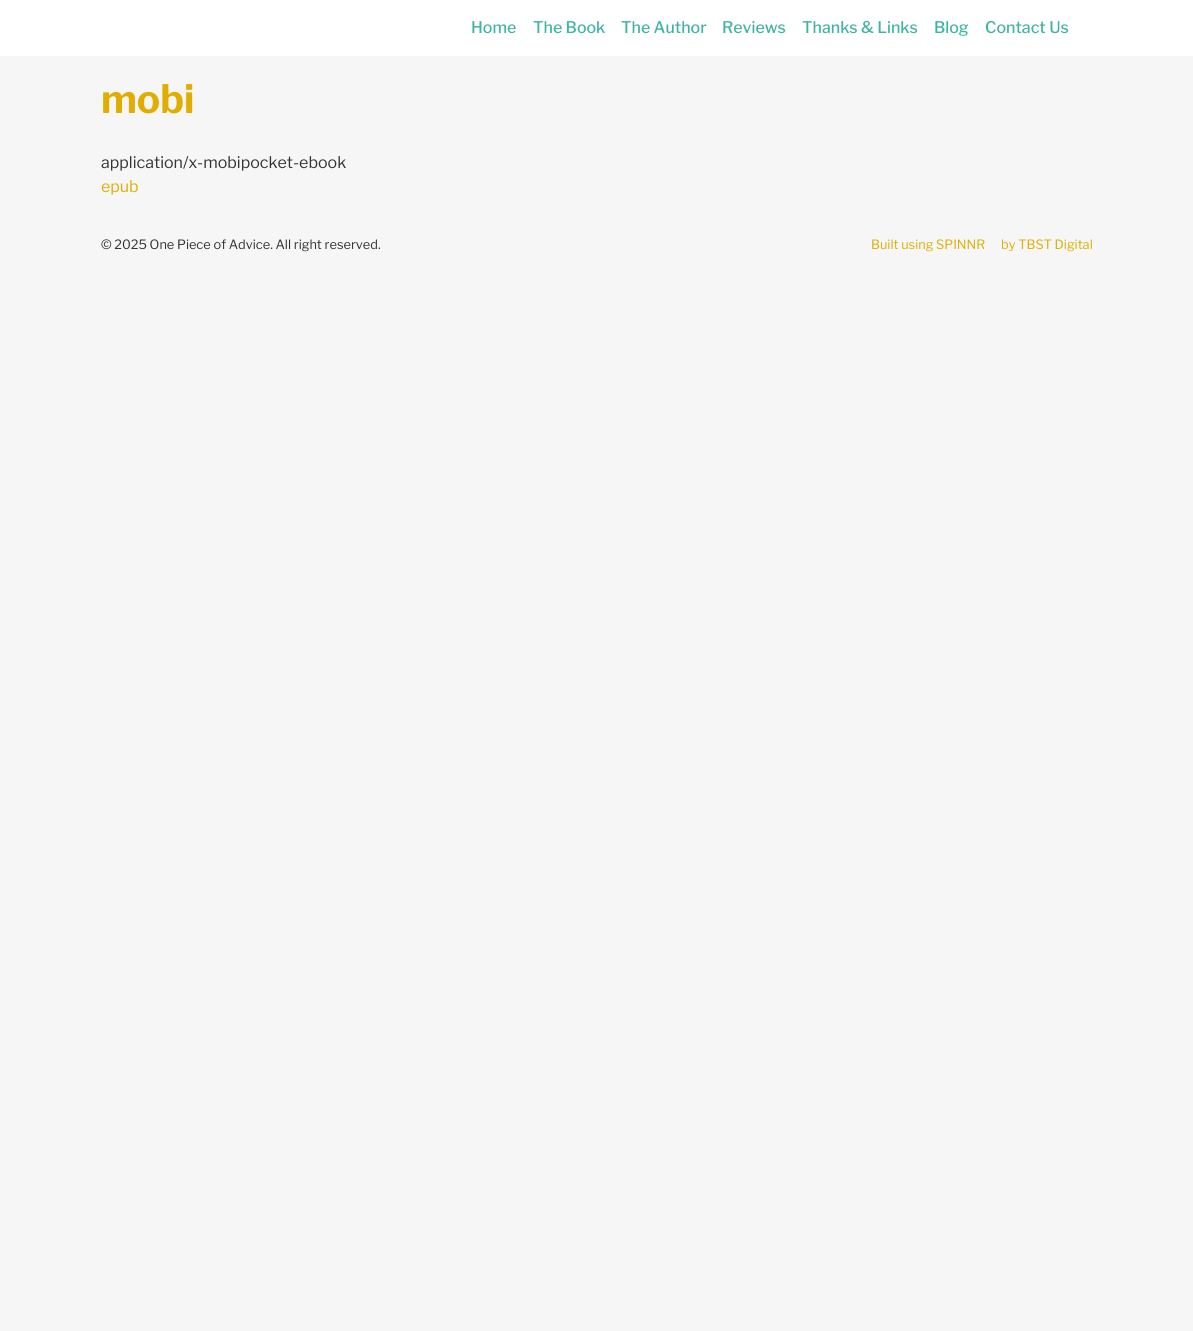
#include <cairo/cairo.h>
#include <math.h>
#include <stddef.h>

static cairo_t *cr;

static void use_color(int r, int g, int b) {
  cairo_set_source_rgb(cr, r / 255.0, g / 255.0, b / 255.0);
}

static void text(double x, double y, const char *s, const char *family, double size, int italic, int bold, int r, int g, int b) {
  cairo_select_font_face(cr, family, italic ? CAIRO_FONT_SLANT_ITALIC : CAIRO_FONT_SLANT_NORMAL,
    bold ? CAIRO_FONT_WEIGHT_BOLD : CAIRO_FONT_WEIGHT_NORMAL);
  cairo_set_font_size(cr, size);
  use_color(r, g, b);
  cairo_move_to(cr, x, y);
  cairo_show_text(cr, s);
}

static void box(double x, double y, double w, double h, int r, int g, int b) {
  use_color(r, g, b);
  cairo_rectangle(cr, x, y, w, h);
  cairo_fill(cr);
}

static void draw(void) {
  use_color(246, 246, 246);
  cairo_paint(cr);
  box(0, 0, 1193, 56, 255, 255, 255);
  text(471, 33, "Home", "Libre Franklin Medium", 16, 0, 0, 64, 179, 164);
  text(533, 33, "The Book", "Libre Franklin Medium", 16, 0, 0, 64, 179, 164);
  text(621, 33, "The Author", "Libre Franklin Medium", 16, 0, 0, 64, 179, 164);
  text(722, 33, "Reviews", "Libre Franklin Medium", 16, 0, 0, 64, 179, 164);
  text(802, 33, "Thanks & Links", "Libre Franklin Medium", 16, 0, 0, 64, 179, 164);
  text(934, 33, "Blog", "Libre Franklin Medium", 16, 0, 0, 64, 179, 164);
  text(985, 33, "Contact Us", "Libre Franklin Medium", 16, 0, 0, 64, 179, 164);
  text(101, 113, "mobi", "Libre Franklin", 39, 0, 1, 225, 174, 0);
  text(101, 168, "application/x-mobipocket-ebook", "Libre Franklin", 16, 0, 0, 51, 51, 51);
  text(101, 192, "epub", "Libre Franklin", 16, 0, 0, 225, 174, 0);
  text(101, 249, "© 2025 One Piece of Advice. All right reserved.", "Libre Franklin", 12.8, 0, 0, 51, 51, 51);
  text(871, 249, "Built using SPINNR", "Libre Franklin", 12.8, 0, 0, 225, 174, 0);
  text(1001, 249, "by TBST Digital", "Libre Franklin", 12.8, 0, 0, 225, 174, 0);
}

int main(void) {
  cairo_surface_t *surface = cairo_image_surface_create(CAIRO_FORMAT_RGB24, 1193, 1331);
  cr = cairo_create(surface);
  cairo_font_options_t *options = cairo_font_options_create();
  cairo_font_options_set_hint_metrics(options, CAIRO_HINT_METRICS_OFF);
  cairo_font_options_set_hint_style(options, CAIRO_HINT_STYLE_NONE);
  cairo_set_font_options(cr, options);
  cairo_set_miter_limit(cr, 4);
  draw();
  cairo_surface_write_to_png(surface, "out.png");
  cairo_font_options_destroy(options);
  cairo_destroy(cr);
  cairo_surface_destroy(surface);
  return 0;
}
